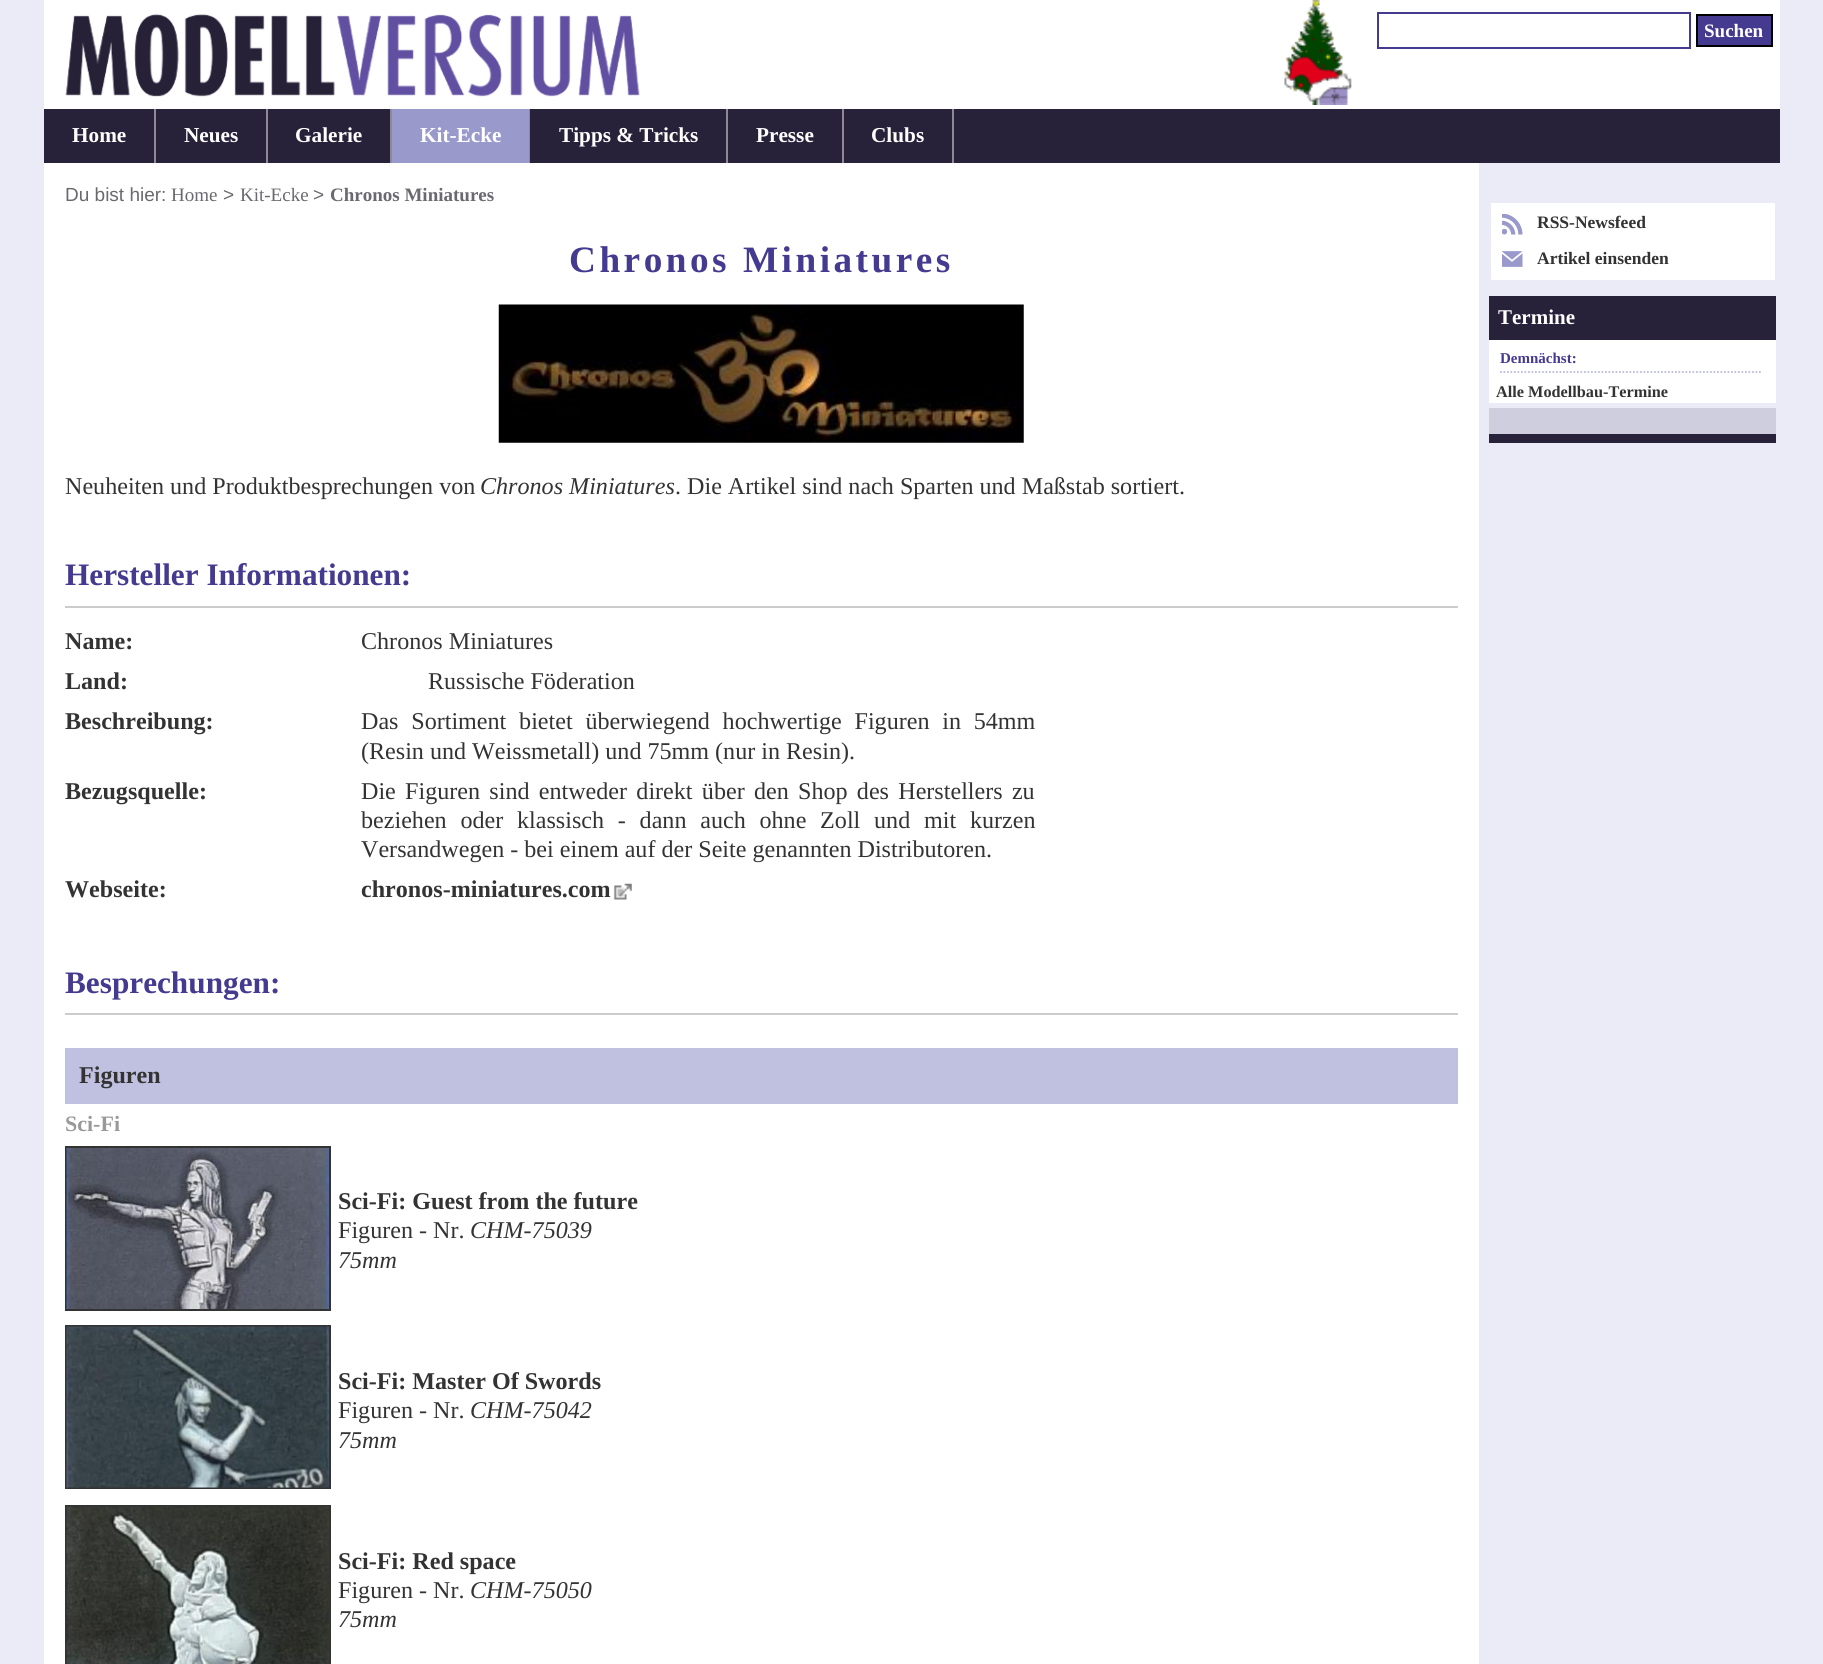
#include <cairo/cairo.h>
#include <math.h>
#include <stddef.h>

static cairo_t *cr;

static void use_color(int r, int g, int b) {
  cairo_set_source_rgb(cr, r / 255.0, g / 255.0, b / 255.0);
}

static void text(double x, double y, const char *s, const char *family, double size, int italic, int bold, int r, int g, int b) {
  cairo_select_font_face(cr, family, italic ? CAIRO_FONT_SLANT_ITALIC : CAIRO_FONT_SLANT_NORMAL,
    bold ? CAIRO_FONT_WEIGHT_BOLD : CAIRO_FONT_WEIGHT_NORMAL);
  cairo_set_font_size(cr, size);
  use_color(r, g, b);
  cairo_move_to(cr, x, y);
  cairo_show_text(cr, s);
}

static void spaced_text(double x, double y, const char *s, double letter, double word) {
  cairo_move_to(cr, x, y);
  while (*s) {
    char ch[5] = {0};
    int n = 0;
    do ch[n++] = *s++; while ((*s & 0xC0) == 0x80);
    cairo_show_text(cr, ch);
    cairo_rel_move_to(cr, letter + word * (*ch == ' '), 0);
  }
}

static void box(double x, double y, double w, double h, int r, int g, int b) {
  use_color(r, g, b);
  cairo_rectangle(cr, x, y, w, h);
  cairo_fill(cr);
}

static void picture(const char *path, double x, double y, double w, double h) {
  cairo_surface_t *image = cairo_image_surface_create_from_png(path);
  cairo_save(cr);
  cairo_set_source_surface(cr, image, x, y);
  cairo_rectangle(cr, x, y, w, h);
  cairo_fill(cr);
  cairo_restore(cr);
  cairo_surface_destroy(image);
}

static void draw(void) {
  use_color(235, 235, 247);
  cairo_paint(cr);
  box(44, 0, 1736, 109, 255, 255, 255);
  picture("img_01.png", 65, 14, 575, 83);
  picture("img_02.png", 1284, 0, 68, 105);
  cairo_rectangle(cr, 1378, 13, 312, 35);
  use_color(68, 58, 144);
  cairo_stroke(cr);
  cairo_rectangle(cr, 1697, 15, 75, 31);
  cairo_fill_preserve(cr);
  use_color(0, 0, 0);
  cairo_stroke(cr);
  box(44, 109, 1736, 54, 39, 34, 57);
  box(154, 109, 2, 54, 141, 136, 147);
  box(266, 109, 2, 54, 141, 136, 147);
  box(390, 109, 2, 54, 141, 136, 147);
  box(392, 109, 137, 54, 153, 153, 204);
  box(529, 109, 1, 54, 141, 136, 147);
  box(726, 109, 2, 54, 141, 136, 147);
  box(842, 109, 2, 54, 141, 136, 147);
  box(952, 109, 2, 54, 141, 136, 147);
  box(44, 163, 1435, 1501, 255, 255, 255);
  picture("img_03.png", 498, 304, 526, 139);
  box(65, 606, 1393, 2, 204, 204, 204);
  picture("img_04.png", 613, 883, 19, 17);
  box(65, 1013, 1393, 2, 204, 204, 204);
  box(65, 1048, 1393, 56, 192, 192, 224);
  cairo_rectangle(cr, 66, 1147, 264, 163);
  use_color(51, 51, 51);
  cairo_stroke(cr);
  picture("img_05.png", 66, 1148, 263, 161);
  cairo_rectangle(cr, 66, 1326, 264, 162);
  cairo_stroke(cr);
  picture("img_06.png", 66, 1326, 263, 162);
  cairo_rectangle(cr, 66, 1506, 264, 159);
  cairo_stroke(cr);
  picture("img_07.png", 66, 1506, 263, 158);
  box(1491, 203, 284, 77, 255, 255, 255);
  picture("img_08.png", 1502, 214, 21, 21);
  picture("img_09.png", 1502, 251, 21, 16);
  box(1489, 340, 287, 63, 255, 255, 255);
  box(1489, 296, 287, 44, 39, 34, 57);
  cairo_new_path(cr);
  cairo_move_to(cr, 1500, 372);
  cairo_line_to(cr, 1762, 372);
  use_color(187, 187, 221);
  cairo_set_line_width(cr, 1.8);
  cairo_set_dash(cr, (double[]){1.75, 1.75}, 2, 0);
  cairo_stroke(cr);
  box(1489, 408, 287, 26, 206, 206, 223);
  box(1489, 434, 287, 9, 39, 34, 57);
  text(1704, 37, "Suchen", "Liberation Serif", 19, 0, 1, 255, 255, 255);
  text(72, 142, "Home", "Liberation Serif", 21.25, 0, 1, 255, 255, 255);
  text(184, 142, "Neues", "Liberation Serif", 21.25, 0, 1, 255, 255, 255);
  text(295, 142, "Galerie", "Liberation Serif", 21.25, 0, 1, 255, 255, 255);
  text(420, 142, "Kit-Ecke", "Liberation Serif", 21.25, 0, 1, 255, 255, 255);
  text(559, 142, "Tipps & Tricks", "Liberation Serif", 21.25, 0, 1, 255, 255, 255);
  text(756, 142, "Presse", "Liberation Serif", 21.25, 0, 1, 255, 255, 255);
  text(871, 142, "Clubs", "Liberation Serif", 21.25, 0, 1, 255, 255, 255);
  text(65, 201, "Du bist hier:", "Liberation Sans", 19, 0, 0, 106, 105, 111);
  text(171, 201, "Home", "Liberation Serif", 19, 0, 0, 106, 105, 111);
  text(223, 201, ">", "Liberation Sans", 19, 0, 0, 106, 105, 111);
  text(240, 201, "Kit-Ecke", "Liberation Serif", 19, 0, 0, 106, 105, 111);
  text(313, 201, ">", "Liberation Sans", 19, 0, 0, 106, 105, 111);
  text(330, 201, "Chronos Miniatures", "Liberation Serif", 19, 0, 1, 106, 105, 111);
  cairo_set_font_size(cr, 37.25);
  use_color(68, 58, 144);
  spaced_text(569, 272, "Chronos Miniatures", 3.5, 0);
  text(65, 494, "Neuheiten und Produktbesprechungen von", "Liberation Serif", 24.1, 0, 0, 51, 51, 51);
  text(480, 494, "Chronos Miniatures", "Liberation Serif", 24.1, 1, 0, 51, 51, 51);
  text(675, 494, ". Die Artikel sind nach Sparten und Maßstab sortiert.", "Liberation Serif", 24.1, 0, 0, 51, 51, 51);
  text(65, 585, "Hersteller Informationen:", "Liberation Serif", 31.25, 0, 1, 68, 58, 144);
  text(65, 649, "Name:", "Liberation Serif", 24.1, 0, 1, 51, 51, 51);
  text(361, 649, "Chronos Miniatures", "Liberation Serif", 24.1, 0, 0, 51, 51, 51);
  text(65, 689, "Land:", "Liberation Serif", 24.1, 0, 1, 51, 51, 51);
  text(428, 689, "Russische Föderation", "Liberation Serif", 24.1, 0, 0, 51, 51, 51);
  text(65, 729, "Beschreibung:", "Liberation Serif", 24.1, 0, 1, 51, 51, 51);
  cairo_select_font_face(cr, "Liberation Serif", CAIRO_FONT_SLANT_NORMAL, CAIRO_FONT_WEIGHT_NORMAL);
  spaced_text(361, 729, "Das Sortiment bietet überwiegend hochwertige Figuren in 54mm", 0, 6.75);
  text(361, 759, "(Resin und Weissmetall) und 75mm (nur in Resin).", "Liberation Serif", 24.1, 0, 0, 51, 51, 51);
  text(65, 799, "Bezugsquelle:", "Liberation Serif", 24.1, 0, 1, 51, 51, 51);
  cairo_select_font_face(cr, "Liberation Serif", CAIRO_FONT_SLANT_NORMAL, CAIRO_FONT_WEIGHT_NORMAL);
  spaced_text(361, 799, "Die Figuren sind entweder direkt über den Shop des Herstellers zu", 0, 3.25);
  spaced_text(361, 828, "beziehen oder klassisch - dann auch ohne Zoll und mit kurzen", 0, 7.75);
  text(361, 857, "Versandwegen - bei einem auf der Seite genannten Distributoren.", "Liberation Serif", 24.1, 0, 0, 51, 51, 51);
  text(65, 897, "Webseite:", "Liberation Serif", 24.1, 0, 1, 51, 51, 51);
  text(361, 897, "chronos-miniatures.com", "Liberation Serif", 24.1, 0, 1, 51, 51, 51);
  text(65, 993, "Besprechungen:", "Liberation Serif", 31.25, 0, 1, 68, 58, 144);
  text(79, 1083, "Figuren", "Liberation Serif", 24.1, 0, 1, 51, 51, 51);
  text(65, 1131, "Sci-Fi", "Liberation Serif", 22, 0, 1, 153, 153, 153);
  text(338, 1209, "Sci-Fi: Guest from the future", "Liberation Serif", 24.1, 0, 1, 51, 51, 51);
  text(338, 1238, "Figuren - Nr.", "Liberation Serif", 24.1, 0, 0, 51, 51, 51);
  text(470, 1238, "CHM-75039", "Liberation Serif", 24.1, 1, 0, 51, 51, 51);
  text(338, 1268, "75mm", "Liberation Serif", 24.1, 1, 0, 51, 51, 51);
  text(338, 1389, "Sci-Fi: Master Of Swords", "Liberation Serif", 24.1, 0, 1, 51, 51, 51);
  text(338, 1418, "Figuren - Nr.", "Liberation Serif", 24.1, 0, 0, 51, 51, 51);
  text(470, 1418, "CHM-75042", "Liberation Serif", 24.1, 1, 0, 51, 51, 51);
  text(338, 1448, "75mm", "Liberation Serif", 24.1, 1, 0, 51, 51, 51);
  text(338, 1569, "Sci-Fi: Red space", "Liberation Serif", 24.1, 0, 1, 51, 51, 51);
  text(338, 1598, "Figuren - Nr.", "Liberation Serif", 24.1, 0, 0, 51, 51, 51);
  text(470, 1598, "CHM-75050", "Liberation Serif", 24.1, 1, 0, 51, 51, 51);
  text(338, 1627, "75mm", "Liberation Serif", 24.1, 1, 0, 51, 51, 51);
  text(1537, 228, "RSS-Newsfeed", "Liberation Serif", 17.5, 0, 1, 51, 51, 51);
  text(1537, 264, "Artikel einsenden", "Liberation Serif", 17.5, 0, 1, 51, 51, 51);
  text(1498, 324, "Termine", "Liberation Serif", 21, 0, 1, 255, 255, 255);
  text(1500, 363, "Demnächst:", "Liberation Serif", 15, 0, 1, 68, 58, 144);
  text(1496, 397, "Alle Modellbau-Termine", "Liberation Serif", 16.25, 0, 1, 51, 51, 51);
}

int main(void) {
  cairo_surface_t *surface = cairo_image_surface_create(CAIRO_FORMAT_RGB24, 1823, 1664);
  cr = cairo_create(surface);
  cairo_font_options_t *options = cairo_font_options_create();
  cairo_font_options_set_hint_metrics(options, CAIRO_HINT_METRICS_OFF);
  cairo_font_options_set_hint_style(options, CAIRO_HINT_STYLE_NONE);
  cairo_set_font_options(cr, options);
  cairo_set_miter_limit(cr, 4);
  draw();
  cairo_surface_write_to_png(surface, "out.png");
  cairo_font_options_destroy(options);
  cairo_destroy(cr);
  cairo_surface_destroy(surface);
  return 0;
}
